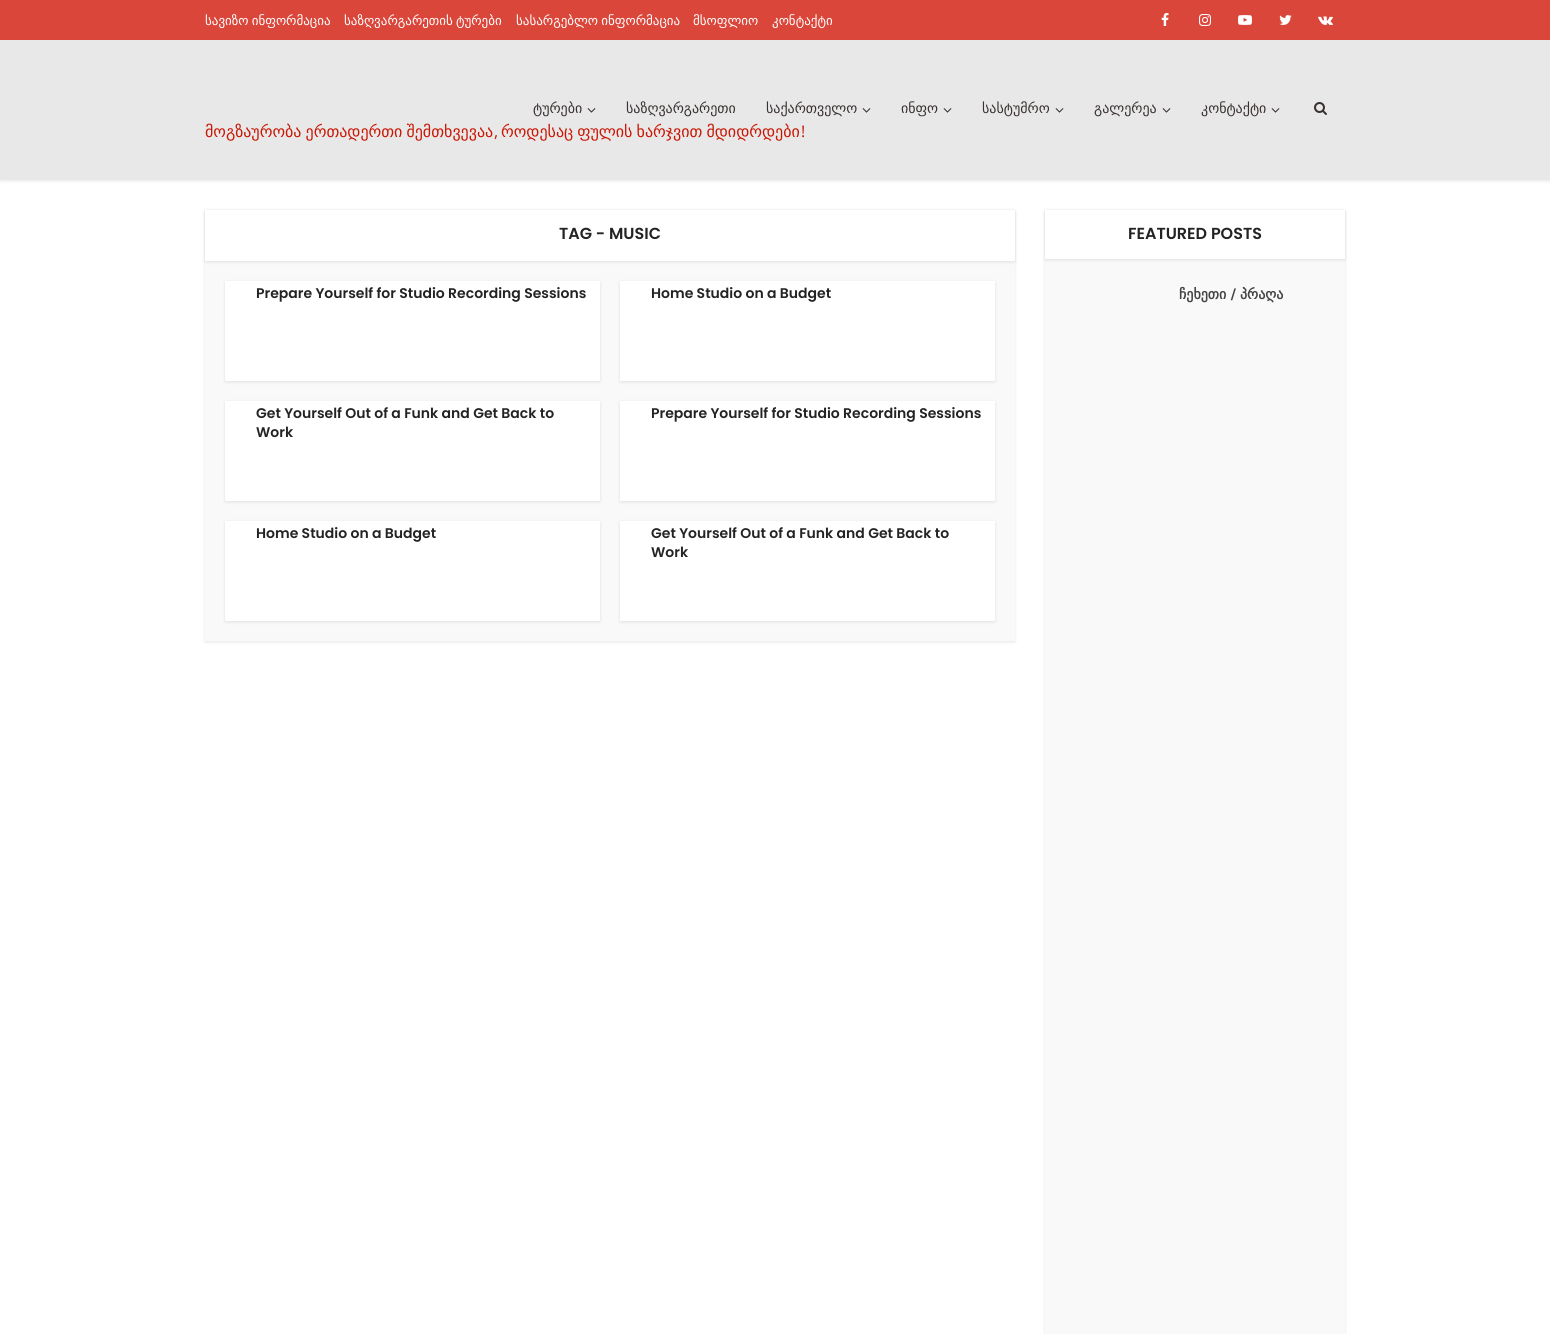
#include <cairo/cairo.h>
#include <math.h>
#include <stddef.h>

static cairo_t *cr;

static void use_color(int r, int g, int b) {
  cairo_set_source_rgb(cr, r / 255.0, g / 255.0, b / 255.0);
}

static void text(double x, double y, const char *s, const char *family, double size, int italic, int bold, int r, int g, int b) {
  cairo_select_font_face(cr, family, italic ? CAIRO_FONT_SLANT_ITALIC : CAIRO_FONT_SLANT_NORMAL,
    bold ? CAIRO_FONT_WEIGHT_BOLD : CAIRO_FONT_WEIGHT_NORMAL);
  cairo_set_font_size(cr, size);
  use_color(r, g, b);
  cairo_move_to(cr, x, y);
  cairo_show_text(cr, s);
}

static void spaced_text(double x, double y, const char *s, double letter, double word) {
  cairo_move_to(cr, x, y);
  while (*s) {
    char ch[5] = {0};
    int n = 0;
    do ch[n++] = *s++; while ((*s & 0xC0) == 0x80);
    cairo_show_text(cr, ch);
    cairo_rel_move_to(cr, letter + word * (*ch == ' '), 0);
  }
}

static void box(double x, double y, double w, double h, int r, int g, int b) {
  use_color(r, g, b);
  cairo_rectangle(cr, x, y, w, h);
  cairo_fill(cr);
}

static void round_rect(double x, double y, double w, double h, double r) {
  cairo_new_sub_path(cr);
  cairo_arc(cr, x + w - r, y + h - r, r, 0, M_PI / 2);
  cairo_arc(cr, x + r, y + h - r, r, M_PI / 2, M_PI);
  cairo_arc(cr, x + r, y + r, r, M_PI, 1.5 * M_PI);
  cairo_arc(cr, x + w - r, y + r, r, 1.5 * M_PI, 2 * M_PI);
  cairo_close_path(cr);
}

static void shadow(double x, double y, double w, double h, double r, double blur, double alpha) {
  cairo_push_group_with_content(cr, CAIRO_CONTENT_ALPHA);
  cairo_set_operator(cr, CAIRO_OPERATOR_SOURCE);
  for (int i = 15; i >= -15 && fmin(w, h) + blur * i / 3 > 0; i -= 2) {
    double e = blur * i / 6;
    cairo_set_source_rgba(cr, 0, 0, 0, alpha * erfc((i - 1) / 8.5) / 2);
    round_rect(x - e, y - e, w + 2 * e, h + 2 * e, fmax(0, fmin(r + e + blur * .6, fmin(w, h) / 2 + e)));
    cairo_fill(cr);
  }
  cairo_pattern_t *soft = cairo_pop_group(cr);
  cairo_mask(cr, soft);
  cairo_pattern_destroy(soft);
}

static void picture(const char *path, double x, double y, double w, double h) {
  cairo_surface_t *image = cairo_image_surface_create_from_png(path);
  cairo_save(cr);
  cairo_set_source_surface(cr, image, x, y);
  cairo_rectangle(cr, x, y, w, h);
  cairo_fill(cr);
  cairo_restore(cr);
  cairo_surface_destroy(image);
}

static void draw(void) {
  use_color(255, 255, 255);
  cairo_paint(cr);
  use_color(0, 0, 0);
  shadow(0, 1, 1550, 180, 0, 1.5, 0.1);
  box(0, 40, 1550, 140, 232, 232, 232);
  box(0, 0, 1550, 40, 218, 70, 58);
  picture("img_01.png", 1161, 13, 8, 13);
  picture("img_02.png", 1199, 14, 12, 12);
  picture("img_03.png", 1238, 15, 14, 10);
  picture("img_04.png", 1279, 15, 13, 10);
  picture("img_05.png", 1318, 16, 15, 9);
  picture("img_06.png", 587, 108, 9, 5);
  picture("img_06.png", 862, 108, 9, 5);
  picture("img_06.png", 943, 108, 9, 5);
  picture("img_06.png", 1055, 108, 9, 5);
  picture("img_06.png", 1162, 108, 9, 5);
  picture("img_06.png", 1271, 108, 9, 5);
  picture("img_07.png", 1314, 102, 13, 13);
  use_color(0, 0, 0);
  shadow(205, 211, 810, 431, 0, 1.5, 0.1);
  box(205, 261, 810, 380, 249, 249, 249);
  use_color(0, 0, 0);
  shadow(205, 211, 810, 51, 0, 1.5, 0.1);
  box(205, 210, 810, 51, 255, 255, 255);
  use_color(0, 0, 0);
  shadow(225, 282, 375, 100, 0, 1.5, 0.1);
  box(225, 281, 375, 100, 255, 255, 255);
  use_color(0, 0, 0);
  shadow(620, 282, 375, 100, 0, 1.5, 0.1);
  box(620, 281, 375, 100, 255, 255, 255);
  use_color(0, 0, 0);
  shadow(225, 402, 375, 100, 0, 1.5, 0.1);
  box(225, 401, 375, 100, 255, 255, 255);
  use_color(0, 0, 0);
  shadow(620, 402, 375, 100, 0, 1.5, 0.1);
  box(620, 401, 375, 100, 255, 255, 255);
  use_color(0, 0, 0);
  shadow(225, 522, 375, 100, 0, 1.5, 0.1);
  box(225, 521, 375, 100, 255, 255, 255);
  use_color(0, 0, 0);
  shadow(620, 522, 375, 100, 0, 1.5, 0.1);
  box(620, 521, 375, 100, 255, 255, 255);
  use_color(0, 0, 0);
  shadow(1045, 211, 300, 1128, 0, 1.5, 0.1);
  box(1045, 259, 300, 1075, 249, 249, 249);
  use_color(0, 0, 0);
  shadow(1045, 211, 300, 49, 0, 1.5, 0.1);
  box(1045, 210, 300, 49, 255, 255, 255);
  cairo_select_font_face(cr, "DejaVu Sans", CAIRO_FONT_SLANT_NORMAL, CAIRO_FONT_WEIGHT_NORMAL);
  cairo_set_font_size(cr, 13);
  spaced_text(205, 25, "სავიზო ინფორმაცია", 0, -1);
  spaced_text(344, 25, "საზღვარგარეთის ტურები", 0, -1);
  spaced_text(516, 25, "სასარგებლო ინფორმაცია", 0, -1);
  text(693, 25, "მსოფლიო", "DejaVu Sans", 13, 0, 0, 255, 255, 255);
  text(772, 25, "კონტაქტი", "DejaVu Sans", 13, 0, 0, 255, 255, 255);
  text(533, 113, "ტურები", "DejaVu Sans", 14, 0, 0, 57, 48, 48);
  text(626, 113, "საზღვარგარეთი", "DejaVu Sans", 14, 0, 0, 57, 48, 48);
  text(766, 113, "საქართველო", "DejaVu Sans", 14, 0, 0, 57, 48, 48);
  text(901, 113, "ინფო", "DejaVu Sans", 14, 0, 0, 57, 48, 48);
  text(982, 113, "სასტუმრო", "DejaVu Sans", 14, 0, 0, 57, 48, 48);
  text(1094, 113, "გალერეა", "DejaVu Sans", 14, 0, 0, 57, 48, 48);
  text(1201, 113, "კონტაქტი", "DejaVu Sans", 14, 0, 0, 57, 48, 48);
  cairo_set_font_size(cr, 16);
  use_color(201, 23, 4);
  spaced_text(205, 137, "მოგზაურობა ერთადერთი შემთხვევაა", 0, -1);
  text(494, 137, ",", "Open Sans", 16, 0, 0, 201, 23, 4);
  cairo_select_font_face(cr, "DejaVu Sans", CAIRO_FONT_SLANT_NORMAL, CAIRO_FONT_WEIGHT_NORMAL);
  spaced_text(501, 137, "როდესაც ფულის ხარჯვით მდიდრდები", 0, -1);
  text(801, 137, "!", "Open Sans", 16, 0, 0, 201, 23, 4);
  text(559, 239, "TAG - MUSIC", "Poppins SemiBold", 16, 0, 0, 35, 35, 35);
  text(256, 298, "Prepare Yourself for Studio Recording Sessions", "Poppins SemiBold", 14, 0, 0, 35, 35, 35);
  text(651, 298, "Home Studio on a Budget", "Poppins SemiBold", 14, 0, 0, 35, 35, 35);
  text(256, 418, "Get Yourself Out of a Funk and Get Back to", "Poppins SemiBold", 14, 0, 0, 35, 35, 35);
  text(256, 437, "Work", "Poppins SemiBold", 14, 0, 0, 35, 35, 35);
  text(651, 418, "Prepare Yourself for Studio Recording Sessions", "Poppins SemiBold", 14, 0, 0, 35, 35, 35);
  text(256, 538, "Home Studio on a Budget", "Poppins SemiBold", 14, 0, 0, 35, 35, 35);
  text(651, 538, "Get Yourself Out of a Funk and Get Back to", "Poppins SemiBold", 14, 0, 0, 35, 35, 35);
  text(651, 557, "Work", "Poppins SemiBold", 14, 0, 0, 35, 35, 35);
  text(1128, 239, "FEATURED POSTS", "Poppins SemiBold", 16, 0, 0, 35, 35, 35);
  text(1179, 299, "ჩეხეთი / პრაღა", "DejaVu Sans", 14, 0, 1, 68, 68, 68);
}

int main(void) {
  cairo_surface_t *surface = cairo_image_surface_create(CAIRO_FORMAT_RGB24, 1550, 1334);
  cr = cairo_create(surface);
  cairo_font_options_t *options = cairo_font_options_create();
  cairo_font_options_set_hint_metrics(options, CAIRO_HINT_METRICS_OFF);
  cairo_font_options_set_hint_style(options, CAIRO_HINT_STYLE_NONE);
  cairo_set_font_options(cr, options);
  cairo_set_miter_limit(cr, 4);
  draw();
  cairo_surface_write_to_png(surface, "out.png");
  cairo_font_options_destroy(options);
  cairo_destroy(cr);
  cairo_surface_destroy(surface);
  return 0;
}
